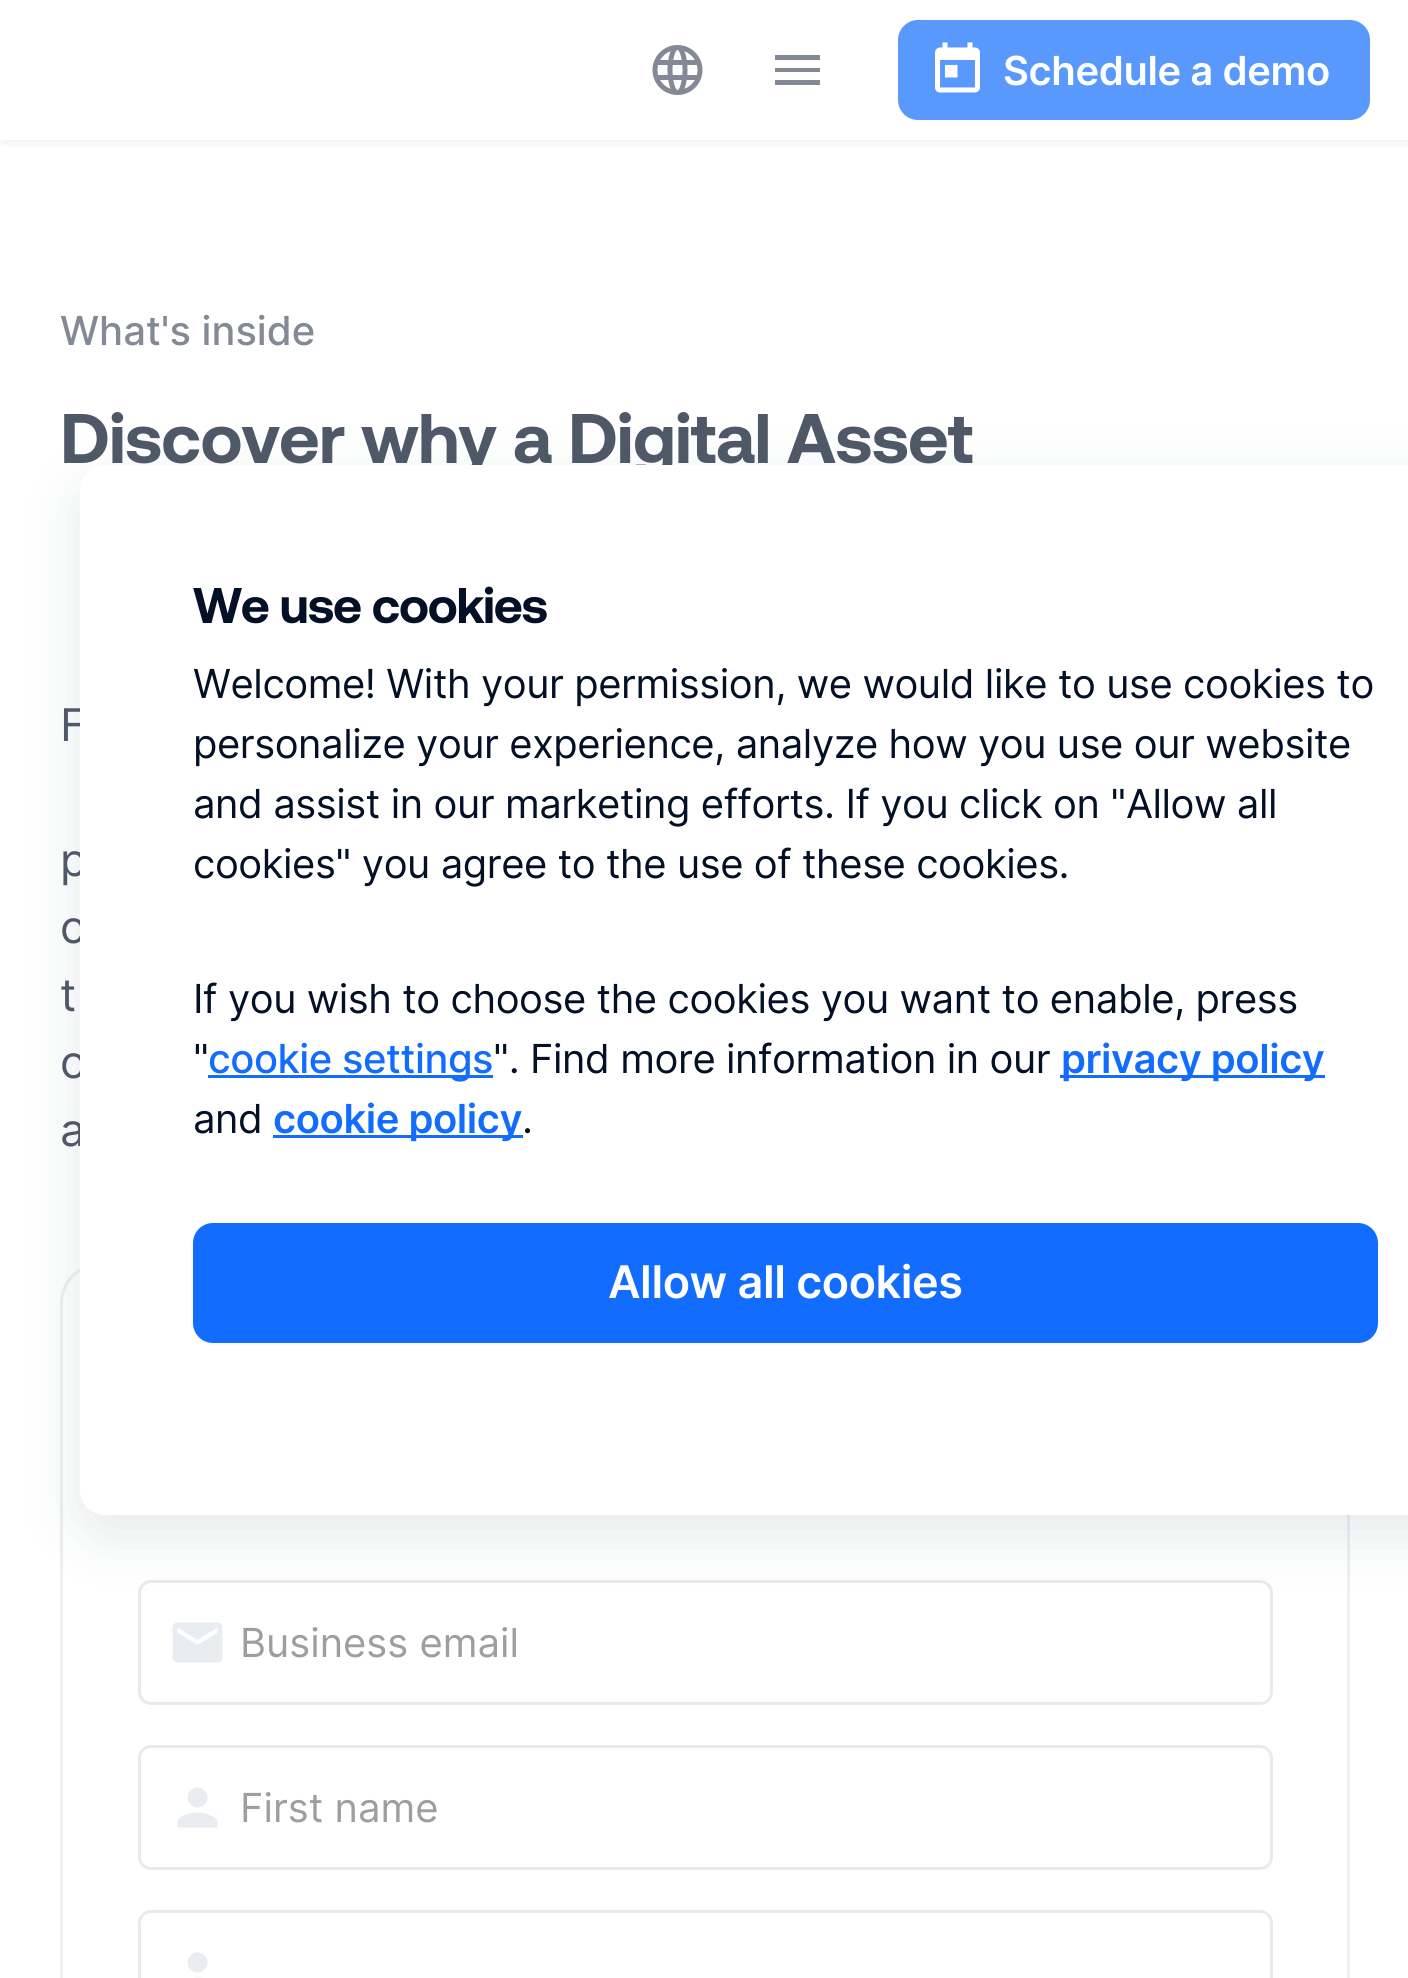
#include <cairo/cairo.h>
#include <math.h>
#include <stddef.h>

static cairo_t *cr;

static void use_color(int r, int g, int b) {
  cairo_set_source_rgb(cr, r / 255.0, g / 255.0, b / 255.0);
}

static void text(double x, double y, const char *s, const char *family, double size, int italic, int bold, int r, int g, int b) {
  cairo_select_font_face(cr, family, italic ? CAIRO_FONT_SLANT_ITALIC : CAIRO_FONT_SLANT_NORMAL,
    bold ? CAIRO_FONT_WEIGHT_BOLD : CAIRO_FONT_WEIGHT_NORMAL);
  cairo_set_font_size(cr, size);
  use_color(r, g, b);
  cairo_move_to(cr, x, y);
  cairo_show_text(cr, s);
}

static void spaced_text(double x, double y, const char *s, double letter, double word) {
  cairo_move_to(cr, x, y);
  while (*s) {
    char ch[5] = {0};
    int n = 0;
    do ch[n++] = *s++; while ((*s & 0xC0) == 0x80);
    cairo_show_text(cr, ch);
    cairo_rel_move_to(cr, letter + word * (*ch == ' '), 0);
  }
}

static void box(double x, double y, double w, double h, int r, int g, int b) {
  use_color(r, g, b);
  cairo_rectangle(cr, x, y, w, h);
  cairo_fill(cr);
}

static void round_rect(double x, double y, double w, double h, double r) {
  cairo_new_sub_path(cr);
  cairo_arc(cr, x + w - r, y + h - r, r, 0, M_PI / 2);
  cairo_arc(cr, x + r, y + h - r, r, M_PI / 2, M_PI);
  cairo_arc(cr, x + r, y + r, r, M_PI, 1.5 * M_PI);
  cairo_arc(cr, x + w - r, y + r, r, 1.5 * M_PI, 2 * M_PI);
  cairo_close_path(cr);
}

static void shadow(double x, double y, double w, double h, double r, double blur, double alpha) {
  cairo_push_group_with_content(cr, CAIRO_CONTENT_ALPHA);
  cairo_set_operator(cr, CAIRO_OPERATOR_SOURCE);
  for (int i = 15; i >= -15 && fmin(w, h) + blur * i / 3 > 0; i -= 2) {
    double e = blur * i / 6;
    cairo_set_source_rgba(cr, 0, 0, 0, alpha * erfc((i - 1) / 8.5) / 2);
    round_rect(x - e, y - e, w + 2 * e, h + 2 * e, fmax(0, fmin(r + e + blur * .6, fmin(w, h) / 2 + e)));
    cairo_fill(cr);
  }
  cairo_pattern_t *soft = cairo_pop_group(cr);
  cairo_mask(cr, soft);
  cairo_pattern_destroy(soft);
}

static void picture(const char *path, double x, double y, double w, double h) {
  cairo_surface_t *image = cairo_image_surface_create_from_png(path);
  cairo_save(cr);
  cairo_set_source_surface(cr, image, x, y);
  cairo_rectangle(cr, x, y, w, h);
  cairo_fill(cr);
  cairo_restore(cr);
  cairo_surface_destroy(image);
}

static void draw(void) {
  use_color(255, 255, 255);
  cairo_paint(cr);
  cairo_save(cr);
  cairo_rectangle(cr, 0, 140, 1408, 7);
  cairo_clip(cr);
  use_color(77, 100, 112);
  shadow(3, 8, 1405, 135, 0, 5, 0.1);
  cairo_restore(cr);
  picture("img_01.png", 652, 45, 51, 50);
  use_color(132, 138, 149);
  cairo_new_path(cr);
  cairo_move_to(cr, 775, 55);
  cairo_line_to(cr, 820, 55);
  cairo_line_to(cr, 820, 60);
  cairo_line_to(cr, 775, 60);
  cairo_close_path(cr);
  cairo_move_to(cr, 775, 72);
  cairo_line_to(cr, 775, 68);
  cairo_line_to(cr, 820, 68);
  cairo_line_to(cr, 820, 72);
  cairo_close_path(cr);
  cairo_move_to(cr, 775, 85);
  cairo_line_to(cr, 775, 80);
  cairo_line_to(cr, 820, 80);
  cairo_line_to(cr, 820, 85);
  cairo_close_path(cr);
  cairo_fill(cr);
  use_color(89, 153, 254);
  round_rect(898, 20, 472, 100, 20);
  cairo_fill(cr);
  picture("img_02.png", 935, 42, 45, 51);
  round_rect(61.5, 1264.5, 1287, 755, 38.5);
  use_color(237, 240, 241);
  cairo_set_line_width(cr, 3);
  cairo_stroke(cr);
  round_rect(139.5, 1581.5, 1132, 122, 11.5);
  use_color(232, 235, 236);
  cairo_stroke(cr);
  picture("img_03.png", 172, 1622, 51, 41);
  round_rect(139.5, 1746.5, 1132, 122, 11.5);
  cairo_stroke(cr);
  picture("img_04.png", 177, 1787, 41, 41);
  round_rect(139.5, 1911.5, 1132, 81, 11.5);
  cairo_stroke(cr);
  picture("img_05.png", 187, 1952, 21, 26);
  use_color(0, 34, 51);
  shadow(80, 485, 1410, 1050, 25, 30, 0.1);
  cairo_select_font_face(cr, "Inter SemiBold", CAIRO_FONT_SLANT_NORMAL, CAIRO_FONT_WEIGHT_NORMAL);
  cairo_set_font_size(cr, 40);
  use_color(255, 255, 255);
  spaced_text(1003, 85, "Schedule a demo", -0.4, 0);
  text(60, 345, "What's inside", "Inter Medium", 40, 0, 0, 132, 138, 149);
  cairo_select_font_face(cr, "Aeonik", CAIRO_FONT_SLANT_NORMAL, CAIRO_FONT_WEIGHT_BOLD);
  cairo_set_font_size(cr, 70);
  use_color(79, 88, 102);
  spaced_text(60, 463, "Discover why a Digital Asset", -0.7, 0);
  cairo_select_font_face(cr, "Inter", CAIRO_FONT_SLANT_NORMAL, CAIRO_FONT_WEIGHT_NORMAL);
  cairo_set_font_size(cr, 45);
  spaced_text(60, 741, "F", -0.45, 0);
  spaced_text(60, 876, "p", -0.45, 0);
  spaced_text(60, 943, "o", -0.45, 0);
  spaced_text(60, 1011, "t", -0.45, 0);
  spaced_text(60, 1078, "o", -0.45, 0);
  spaced_text(60, 1146, "a", -0.45, 0);
  text(240, 1657, "Business email", "Inter", 40, 0, 0, 158, 158, 158);
  text(240, 1822, "First name", "Inter", 40, 0, 0, 158, 158, 158);
  use_color(255, 255, 255);
  round_rect(80, 465, 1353, 1050, 25);
  cairo_fill(cr);
  cairo_select_font_face(cr, "Aeonik", CAIRO_FONT_SLANT_NORMAL, CAIRO_FONT_WEIGHT_BOLD);
  cairo_set_font_size(cr, 50);
  use_color(3, 16, 37);
  spaced_text(193, 623, "We use cookies", -1.25, 0);
  cairo_select_font_face(cr, "Inter", CAIRO_FONT_SLANT_NORMAL, CAIRO_FONT_WEIGHT_NORMAL);
  cairo_set_font_size(cr, 40);
  spaced_text(193, 698, "Welcome! With your permission, we would like to use cookies to", -0.45, 0);
  spaced_text(193, 758, "personalize your experience, analyze how you use our website", -0.45, 0);
  spaced_text(193, 818, "and assist in our marketing efforts. If you click on \"Allow all", -0.45, 0);
  spaced_text(193, 878, "cookies\" you agree to the use of these cookies.", -0.45, 0);
  spaced_text(193, 1013, "If you wish to choose the cookies you want to enable, press", -0.45, 0);
  spaced_text(193, 1073, "\"", -0.45, 0);
  box(208, 1075, 285, 3, 18, 109, 254);
  cairo_select_font_face(cr, "Inter Medium", CAIRO_FONT_SLANT_NORMAL, CAIRO_FONT_WEIGHT_NORMAL);
  spaced_text(208, 1073, "cookie settings", -0.45, 0);
  cairo_select_font_face(cr, "Inter", CAIRO_FONT_SLANT_NORMAL, CAIRO_FONT_WEIGHT_NORMAL);
  use_color(3, 16, 37);
  spaced_text(493, 1073, "\". Find more information in our", -0.45, 0);
  box(1060, 1075, 265, 3, 18, 109, 254);
  cairo_select_font_face(cr, "Inter SemiBold", CAIRO_FONT_SLANT_NORMAL, CAIRO_FONT_WEIGHT_NORMAL);
  spaced_text(1061, 1073, "privacy policy", -0.45, 0);
  cairo_select_font_face(cr, "Inter", CAIRO_FONT_SLANT_NORMAL, CAIRO_FONT_WEIGHT_NORMAL);
  use_color(3, 16, 37);
  spaced_text(193, 1133, "and", -0.45, 0);
  box(273, 1135, 250, 3, 18, 109, 254);
  cairo_select_font_face(cr, "Inter SemiBold", CAIRO_FONT_SLANT_NORMAL, CAIRO_FONT_WEIGHT_NORMAL);
  spaced_text(273, 1133, "cookie policy", -0.45, 0);
  cairo_select_font_face(cr, "Inter", CAIRO_FONT_SLANT_NORMAL, CAIRO_FONT_WEIGHT_NORMAL);
  use_color(3, 16, 37);
  spaced_text(522, 1133, ".", -0.45, 0);
  use_color(18, 109, 254);
  round_rect(193, 1223, 1185, 120, 20);
  cairo_fill(cr);
  cairo_select_font_face(cr, "Inter SemiBold", CAIRO_FONT_SLANT_NORMAL, CAIRO_FONT_WEIGHT_NORMAL);
  cairo_set_font_size(cr, 45);
  use_color(255, 255, 255);
  spaced_text(608, 1298, "Allow all cookies", -0.45, 0);
}

int main(void) {
  cairo_surface_t *surface = cairo_image_surface_create(CAIRO_FORMAT_RGB24, 1408, 1978);
  cr = cairo_create(surface);
  cairo_font_options_t *options = cairo_font_options_create();
  cairo_font_options_set_hint_metrics(options, CAIRO_HINT_METRICS_OFF);
  cairo_font_options_set_hint_style(options, CAIRO_HINT_STYLE_NONE);
  cairo_set_font_options(cr, options);
  cairo_set_miter_limit(cr, 4);
  draw();
  cairo_surface_write_to_png(surface, "out.png");
  cairo_font_options_destroy(options);
  cairo_destroy(cr);
  cairo_surface_destroy(surface);
  return 0;
}
